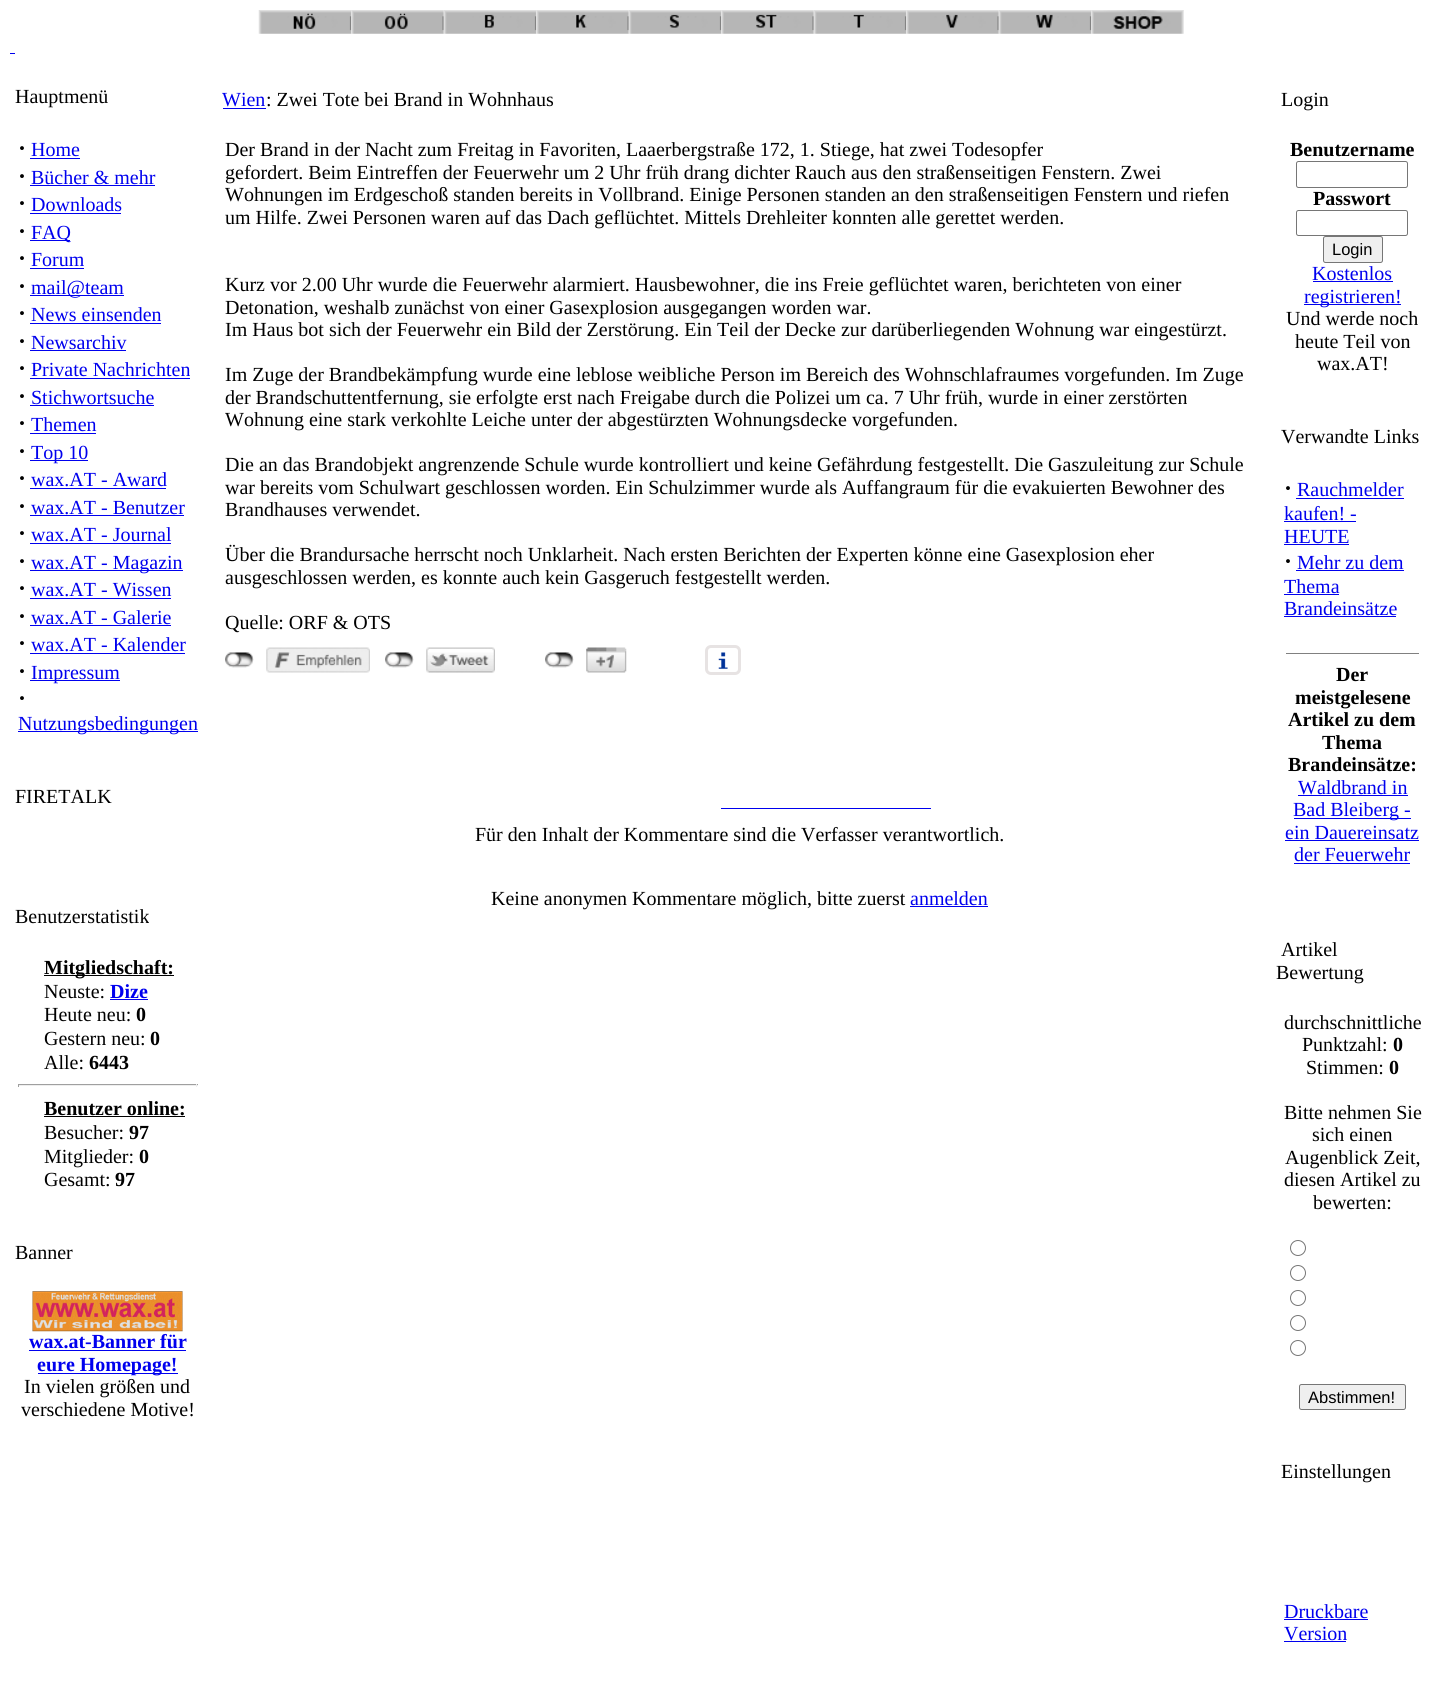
#include <cairo/cairo.h>
#include <math.h>
#include <stddef.h>

static cairo_t *cr;

static void use_color(int r, int g, int b) {
  cairo_set_source_rgb(cr, r / 255.0, g / 255.0, b / 255.0);
}

static void text(double x, double y, const char *s, const char *family, double size, int italic, int bold, int r, int g, int b) {
  cairo_select_font_face(cr, family, italic ? CAIRO_FONT_SLANT_ITALIC : CAIRO_FONT_SLANT_NORMAL,
    bold ? CAIRO_FONT_WEIGHT_BOLD : CAIRO_FONT_WEIGHT_NORMAL);
  cairo_set_font_size(cr, size);
  use_color(r, g, b);
  cairo_move_to(cr, x, y);
  cairo_show_text(cr, s);
}

static void box(double x, double y, double w, double h, int r, int g, int b) {
  use_color(r, g, b);
  cairo_rectangle(cr, x, y, w, h);
  cairo_fill(cr);
}

static void round_rect(double x, double y, double w, double h, double r) {
  cairo_new_sub_path(cr);
  cairo_arc(cr, x + w - r, y + h - r, r, 0, M_PI / 2);
  cairo_arc(cr, x + r, y + h - r, r, M_PI / 2, M_PI);
  cairo_arc(cr, x + r, y + r, r, M_PI, 1.5 * M_PI);
  cairo_arc(cr, x + w - r, y + r, r, 1.5 * M_PI, 2 * M_PI);
  cairo_close_path(cr);
}

static void picture(const char *path, double x, double y, double w, double h) {
  cairo_surface_t *image = cairo_image_surface_create_from_png(path);
  cairo_save(cr);
  cairo_set_source_surface(cr, image, x, y);
  cairo_rectangle(cr, x, y, w, h);
  cairo_fill(cr);
  cairo_restore(cr);
  cairo_surface_destroy(image);
}

static void draw(void) {
  use_color(255, 255, 255);
  cairo_paint(cr);
  picture("img_01.png", 258, 10, 94, 24);
  picture("img_02.png", 351, 10, 93, 24);
  picture("img_03.png", 443, 10, 94, 24);
  picture("img_04.png", 536, 10, 93, 24);
  picture("img_05.png", 628, 10, 94, 24);
  picture("img_06.png", 721, 10, 93, 24);
  picture("img_07.png", 813, 10, 94, 24);
  picture("img_08.png", 906, 10, 93, 24);
  picture("img_09.png", 998, 10, 94, 24);
  picture("img_10.png", 1091, 10, 93, 24);
  box(10, 53, 5, 1, 0, 0, 238);
  box(30, 158, 50, 1, 0, 0, 238);
  box(30, 185, 125, 1, 0, 0, 238);
  box(30, 213, 91, 1, 0, 0, 238);
  box(30, 240, 40, 1, 0, 0, 238);
  box(30, 268, 54, 1, 0, 0, 238);
  box(30, 295, 94, 1, 0, 0, 238);
  box(30, 323, 131, 1, 0, 0, 238);
  box(30, 350, 96, 1, 0, 0, 238);
  box(30, 378, 160, 1, 0, 0, 238);
  box(30, 405, 124, 1, 0, 0, 238);
  box(30, 433, 66, 1, 0, 0, 238);
  box(30, 460, 58, 1, 0, 0, 238);
  box(30, 488, 136, 1, 0, 0, 238);
  box(30, 515, 154, 1, 0, 0, 238);
  box(30, 543, 141, 1, 0, 0, 238);
  box(30, 570, 153, 1, 0, 0, 238);
  box(30, 598, 141, 1, 0, 0, 238);
  box(30, 625, 141, 1, 0, 0, 238);
  box(30, 653, 155, 1, 0, 0, 238);
  box(30, 680, 90, 1, 0, 0, 238);
  box(18, 731, 180, 1, 0, 0, 238);
  box(44, 975, 130, 1, 0, 0, 0);
  box(110, 999, 38, 1, 0, 0, 238);
  box(18, 1084, 180, 1, 159, 159, 159);
  box(196, 1084, 1, 3, 238, 238, 238);
  box(18, 1085, 180, 1, 238, 238, 238);
  box(18, 1084, 1, 3, 159, 159, 159);
  box(44, 1116, 141, 1, 0, 0, 0);
  picture("img_11.png", 32, 1291, 151, 41);
  box(29, 1350, 157, 1, 0, 0, 238);
  box(38, 1373, 140, 1, 0, 0, 238);
  box(223, 108, 43, 1, 0, 0, 238);
  picture("img_12.png", 225, 652, 29, 16);
  picture("img_13.png", 266, 647, 104, 26);
  picture("img_12.png", 385, 652, 29, 16);
  picture("img_14.png", 426, 647, 69, 26);
  picture("img_15.png", 545, 652, 29, 16);
  picture("img_16.png", 586, 647, 41, 26);
  picture("img_17.png", 718, 652, 10, 17);
  round_rect(706.5, 646.5, 33, 27, 4.5);
  use_color(231, 227, 227);
  cairo_set_line_width(cr, 3);
  cairo_stroke(cr);
  box(721, 808, 210, 1, 0, 0, 238);
  box(910, 906, 78, 1, 0, 0, 238);
  round_rect(1296.5, 161.5, 111, 26, 2);
  use_color(118, 118, 118);
  cairo_set_line_width(cr, 1);
  cairo_stroke(cr);
  round_rect(1296.5, 210.5, 111, 25, 2);
  cairo_stroke(cr);
  use_color(239, 239, 239);
  round_rect(1323.5, 236.5, 59, 26, 2);
  cairo_fill_preserve(cr);
  use_color(118, 118, 118);
  cairo_stroke(cr);
  box(1313, 281, 80, 1, 0, 0, 238);
  box(1304, 304, 97, 1, 0, 0, 238);
  box(1296, 498, 108, 1, 0, 0, 238);
  box(1284, 521, 72, 1, 0, 0, 238);
  box(1284, 544, 65, 1, 0, 0, 238);
  box(1296, 570, 108, 1, 0, 0, 238);
  box(1284, 594, 55, 1, 0, 0, 238);
  box(1284, 616, 112, 1, 0, 0, 238);
  box(1286, 653, 133, 1, 128, 128, 128);
  box(1298, 795, 110, 1, 0, 0, 238);
  box(1294, 818, 117, 1, 0, 0, 238);
  box(1285, 840, 134, 1, 0, 0, 238);
  box(1294, 863, 116, 1, 0, 0, 238);
  cairo_arc(cr, 1298, 1248, 7.5, 0, 2 * M_PI);
  use_color(118, 118, 118);
  cairo_stroke(cr);
  cairo_arc(cr, 1298, 1273, 7.5, 0, 2 * M_PI);
  cairo_stroke(cr);
  cairo_arc(cr, 1298, 1298, 7.5, 0, 2 * M_PI);
  cairo_stroke(cr);
  cairo_arc(cr, 1298, 1323, 7.5, 0, 2 * M_PI);
  cairo_stroke(cr);
  cairo_arc(cr, 1298, 1348, 7.5, 0, 2 * M_PI);
  cairo_stroke(cr);
  use_color(239, 239, 239);
  round_rect(1299.5, 1384.5, 106, 25, 2);
  cairo_fill_preserve(cr);
  use_color(118, 118, 118);
  cairo_stroke(cr);
  box(1284, 1619, 84, 1, 0, 0, 238);
  box(1284, 1641, 62, 1, 0, 0, 238);
  text(15, 103, "Hauptmenü", "Liberation Serif", 20, 0, 0, 0, 0, 0);
  text(18, 156, "·", "Liberation Serif", 24, 0, 1, 0, 0, 0);
  text(31, 156, "Home", "Liberation Serif", 20, 0, 0, 0, 0, 238);
  text(18, 184, "·", "Liberation Serif", 24, 0, 1, 0, 0, 0);
  text(31, 184, "Bücher & mehr", "Liberation Serif", 20, 0, 0, 0, 0, 238);
  text(18, 211, "·", "Liberation Serif", 24, 0, 1, 0, 0, 0);
  text(31, 211, "Downloads", "Liberation Serif", 20, 0, 0, 0, 0, 238);
  text(18, 239, "·", "Liberation Serif", 24, 0, 1, 0, 0, 0);
  text(31, 239, "FAQ", "Liberation Serif", 20, 0, 0, 0, 0, 238);
  text(18, 266, "·", "Liberation Serif", 24, 0, 1, 0, 0, 0);
  text(31, 266, "Forum", "Liberation Serif", 20, 0, 0, 0, 0, 238);
  text(18, 294, "·", "Liberation Serif", 24, 0, 1, 0, 0, 0);
  text(31, 294, "mail@team", "Liberation Serif", 20, 0, 0, 0, 0, 238);
  text(18, 321, "·", "Liberation Serif", 24, 0, 1, 0, 0, 0);
  text(31, 321, "News einsenden", "Liberation Serif", 20, 0, 0, 0, 0, 238);
  text(18, 349, "·", "Liberation Serif", 24, 0, 1, 0, 0, 0);
  text(31, 349, "Newsarchiv", "Liberation Serif", 20, 0, 0, 0, 0, 238);
  text(18, 376, "·", "Liberation Serif", 24, 0, 1, 0, 0, 0);
  text(31, 376, "Private Nachrichten", "Liberation Serif", 20, 0, 0, 0, 0, 238);
  text(18, 404, "·", "Liberation Serif", 24, 0, 1, 0, 0, 0);
  text(31, 404, "Stichwortsuche", "Liberation Serif", 20, 0, 0, 0, 0, 238);
  text(18, 431, "·", "Liberation Serif", 24, 0, 1, 0, 0, 0);
  text(31, 431, "Themen", "Liberation Serif", 20, 0, 0, 0, 0, 238);
  text(18, 459, "·", "Liberation Serif", 24, 0, 1, 0, 0, 0);
  text(31, 459, "Top 10", "Liberation Serif", 20, 0, 0, 0, 0, 238);
  text(18, 486, "·", "Liberation Serif", 24, 0, 1, 0, 0, 0);
  text(31, 486, "wax.AT - Award", "Liberation Serif", 20, 0, 0, 0, 0, 238);
  text(18, 514, "·", "Liberation Serif", 24, 0, 1, 0, 0, 0);
  text(31, 514, "wax.AT - Benutzer", "Liberation Serif", 20, 0, 0, 0, 0, 238);
  text(18, 541, "·", "Liberation Serif", 24, 0, 1, 0, 0, 0);
  text(31, 541, "wax.AT - Journal", "Liberation Serif", 20, 0, 0, 0, 0, 238);
  text(18, 569, "·", "Liberation Serif", 24, 0, 1, 0, 0, 0);
  text(31, 569, "wax.AT - Magazin", "Liberation Serif", 20, 0, 0, 0, 0, 238);
  text(18, 596, "·", "Liberation Serif", 24, 0, 1, 0, 0, 0);
  text(31, 596, "wax.AT - Wissen", "Liberation Serif", 20, 0, 0, 0, 0, 238);
  text(18, 624, "·", "Liberation Serif", 24, 0, 1, 0, 0, 0);
  text(31, 624, "wax.AT - Galerie", "Liberation Serif", 20, 0, 0, 0, 0, 238);
  text(18, 651, "·", "Liberation Serif", 24, 0, 1, 0, 0, 0);
  text(31, 651, "wax.AT - Kalender", "Liberation Serif", 20, 0, 0, 0, 0, 238);
  text(18, 679, "·", "Liberation Serif", 24, 0, 1, 0, 0, 0);
  text(31, 679, "Impressum", "Liberation Serif", 20, 0, 0, 0, 0, 238);
  text(18, 706, "·", "Liberation Serif", 24, 0, 1, 0, 0, 0);
  text(18, 730, "Nutzungsbedingungen", "Liberation Serif", 20, 0, 0, 0, 0, 238);
  text(15, 803, "FIRETALK", "Liberation Serif", 20, 0, 0, 0, 0, 0);
  text(15, 923, "Benutzerstatistik", "Liberation Serif", 20, 0, 0, 0, 0, 0);
  text(44, 974, "Mitgliedschaft:", "Liberation Serif", 20, 0, 1, 0, 0, 0);
  text(44, 998, "Neuste:", "Liberation Serif", 20, 0, 0, 0, 0, 0);
  text(110, 998, "Dize", "Liberation Serif", 20, 0, 1, 0, 0, 238);
  text(44, 1021, "Heute neu:", "Liberation Serif", 20, 0, 0, 0, 0, 0);
  text(136, 1021, "0", "Liberation Serif", 20, 0, 1, 0, 0, 0);
  text(44, 1045, "Gestern neu:", "Liberation Serif", 20, 0, 0, 0, 0, 0);
  text(150, 1045, "0", "Liberation Serif", 20, 0, 1, 0, 0, 0);
  text(44, 1069, "Alle:", "Liberation Serif", 20, 0, 0, 0, 0, 0);
  text(89, 1069, "6443", "Liberation Serif", 20, 0, 1, 0, 0, 0);
  text(44, 1115, "Benutzer online:", "Liberation Serif", 20, 0, 1, 0, 0, 0);
  text(44, 1139, "Besucher:", "Liberation Serif", 20, 0, 0, 0, 0, 0);
  text(129, 1139, "97", "Liberation Serif", 20, 0, 1, 0, 0, 0);
  text(44, 1163, "Mitglieder:", "Liberation Serif", 20, 0, 0, 0, 0, 0);
  text(139, 1163, "0", "Liberation Serif", 20, 0, 1, 0, 0, 0);
  text(44, 1186, "Gesamt:", "Liberation Serif", 20, 0, 0, 0, 0, 0);
  text(115, 1186, "97", "Liberation Serif", 20, 0, 1, 0, 0, 0);
  text(15, 1259, "Banner", "Liberation Serif", 20, 0, 0, 0, 0, 0);
  text(29, 1348, "wax.at-Banner für", "Liberation Serif", 20, 0, 1, 0, 0, 238);
  text(37, 1371, "eure Homepage!", "Liberation Serif", 20, 0, 1, 0, 0, 238);
  text(24, 1393, "In vielen größen und", "Liberation Serif", 20, 0, 0, 0, 0, 0);
  text(21, 1416, "verschiedene Motive!", "Liberation Serif", 20, 0, 0, 0, 0, 0);
  text(222, 106, "Wien", "Liberation Serif", 20, 0, 0, 0, 0, 238);
  text(266, 106, ": Zwei Tote bei Brand in Wohnhaus", "Liberation Serif", 20, 0, 0, 0, 0, 0);
  text(225, 156, "Der Brand in der Nacht zum Freitag in Favoriten, Laaerbergstraße 172, 1. Stiege, hat zwei Todesopfer", "Liberation Serif", 20, 0, 0, 0, 0, 0);
  text(225, 179, "gefordert. Beim Eintreffen der Feuerwehr um 2 Uhr früh drang dichter Rauch aus den straßenseitigen Fenstern. Zwei", "Liberation Serif", 20, 0, 0, 0, 0, 0);
  text(225, 201, "Wohnungen im Erdgeschoß standen bereits in Vollbrand. Einige Personen standen an den straßenseitigen Fenstern und riefen", "Liberation Serif", 20, 0, 0, 0, 0, 0);
  text(225, 224, "um Hilfe. Zwei Personen waren auf das Dach geflüchtet. Mittels Drehleiter konnten alle gerettet werden.", "Liberation Serif", 20, 0, 0, 0, 0, 0);
  text(225, 291, "Kurz vor 2.00 Uhr wurde die Feuerwehr alarmiert. Hausbewohner, die ins Freie geflüchtet waren, berichteten von einer", "Liberation Serif", 20, 0, 0, 0, 0, 0);
  text(225, 314, "Detonation, weshalb zunächst von einer Gasexplosion ausgegangen worden war.", "Liberation Serif", 20, 0, 0, 0, 0, 0);
  text(225, 336, "Im Haus bot sich der Feuerwehr ein Bild der Zerstörung. Ein Teil der Decke zur darüberliegenden Wohnung war eingestürzt.", "Liberation Serif", 20, 0, 0, 0, 0, 0);
  text(225, 381, "Im Zuge der Brandbekämpfung wurde eine leblose weibliche Person im Bereich des Wohnschlafraumes vorgefunden. Im Zuge", "Liberation Serif", 20, 0, 0, 0, 0, 0);
  text(225, 404, "der Brandschuttentfernung, sie erfolgte erst nach Freigabe durch die Polizei um ca. 7 Uhr früh, wurde in einer zerstörten", "Liberation Serif", 20, 0, 0, 0, 0, 0);
  text(225, 426, "Wohnung eine stark verkohlte Leiche unter der abgestürzten Wohnungsdecke vorgefunden.", "Liberation Serif", 20, 0, 0, 0, 0, 0);
  text(225, 471, "Die an das Brandobjekt angrenzende Schule wurde kontrolliert und keine Gefährdung festgestellt. Die Gaszuleitung zur Schule", "Liberation Serif", 20, 0, 0, 0, 0, 0);
  text(225, 494, "war bereits vom Schulwart geschlossen worden. Ein Schulzimmer wurde als Auffangraum für die evakuierten Bewohner des", "Liberation Serif", 20, 0, 0, 0, 0, 0);
  text(225, 516, "Brandhauses verwendet.", "Liberation Serif", 20, 0, 0, 0, 0, 0);
  text(225, 561, "Über die Brandursache herrscht noch Unklarheit. Nach ersten Berichten der Experten könne eine Gasexplosion eher", "Liberation Serif", 20, 0, 0, 0, 0, 0);
  text(225, 584, "ausgeschlossen werden, es konnte auch kein Gasgeruch festgestellt werden.", "Liberation Serif", 20, 0, 0, 0, 0, 0);
  text(225, 629, "Quelle: ORF & OTS", "Liberation Serif", 20, 0, 0, 0, 0, 0);
  text(475, 841, "Für den Inhalt der Kommentare sind die Verfasser verantwortlich.", "Liberation Serif", 20, 0, 0, 0, 0, 0);
  text(491, 905, "Keine anonymen Kommentare möglich, bitte zuerst", "Liberation Serif", 20, 0, 0, 0, 0, 0);
  text(910, 905, "anmelden", "Liberation Serif", 20, 0, 0, 0, 0, 238);
  text(1281, 106, "Login", "Liberation Serif", 20, 0, 0, 0, 0, 0);
  text(1290, 156, "Benutzername", "Liberation Serif", 20, 0, 1, 0, 0, 0);
  text(1313, 205, "Passwort", "Liberation Serif", 20, 0, 1, 0, 0, 0);
  text(1332, 255, "Login", "Liberation Sans", 16.5, 0, 0, 0, 0, 0);
  text(1312, 280, "Kostenlos", "Liberation Serif", 20, 0, 0, 0, 0, 238);
  text(1304, 303, "registrieren!", "Liberation Serif", 20, 0, 0, 0, 0, 238);
  text(1286, 325, "Und werde noch", "Liberation Serif", 20, 0, 0, 0, 0, 0);
  text(1295, 348, "heute Teil von", "Liberation Serif", 20, 0, 0, 0, 0, 0);
  text(1317, 370, "wax.AT!", "Liberation Serif", 20, 0, 0, 0, 0, 0);
  text(1281, 443, "Verwandte Links", "Liberation Serif", 20, 0, 0, 0, 0, 0);
  text(1284, 496, "·", "Liberation Serif", 24, 0, 1, 0, 0, 0);
  text(1297, 496, "Rauchmelder", "Liberation Serif", 20, 0, 0, 0, 0, 238);
  text(1284, 520, "kaufen! -", "Liberation Serif", 20, 0, 0, 0, 0, 238);
  text(1284, 543, "HEUTE", "Liberation Serif", 20, 0, 0, 0, 0, 238);
  text(1284, 569, "·", "Liberation Serif", 24, 0, 1, 0, 0, 0);
  text(1297, 569, "Mehr zu dem", "Liberation Serif", 20, 0, 0, 0, 0, 238);
  text(1284, 593, "Thema", "Liberation Serif", 20, 0, 0, 0, 0, 238);
  text(1284, 615, "Brandeinsätze", "Liberation Serif", 20, 0, 0, 0, 0, 238);
  text(1336, 681, "Der", "Liberation Serif", 20, 0, 1, 0, 0, 0);
  text(1295, 704, "meistgelesene", "Liberation Serif", 20, 0, 1, 0, 0, 0);
  text(1288, 726, "Artikel zu dem", "Liberation Serif", 20, 0, 1, 0, 0, 0);
  text(1322, 749, "Thema", "Liberation Serif", 20, 0, 1, 0, 0, 0);
  text(1288, 771, "Brandeinsätze:", "Liberation Serif", 20, 0, 1, 0, 0, 0);
  text(1298, 794, "Waldbrand in", "Liberation Serif", 20, 0, 0, 0, 0, 238);
  text(1293, 816, "Bad Bleiberg -", "Liberation Serif", 20, 0, 0, 0, 0, 238);
  text(1285, 839, "ein Dauereinsatz", "Liberation Serif", 20, 0, 0, 0, 0, 238);
  text(1294, 861, "der Feuerwehr", "Liberation Serif", 20, 0, 0, 0, 0, 238);
  text(1281, 956, "Artikel", "Liberation Serif", 20, 0, 0, 0, 0, 0);
  text(1276, 979, "Bewertung", "Liberation Serif", 20, 0, 0, 0, 0, 0);
  text(1284, 1029, "durchschnittliche", "Liberation Serif", 20, 0, 0, 0, 0, 0);
  text(1302, 1051, "Punktzahl:", "Liberation Serif", 20, 0, 0, 0, 0, 0);
  text(1393, 1051, "0", "Liberation Serif", 20, 0, 1, 0, 0, 0);
  text(1306, 1074, "Stimmen:", "Liberation Serif", 20, 0, 0, 0, 0, 0);
  text(1389, 1074, "0", "Liberation Serif", 20, 0, 1, 0, 0, 0);
  text(1284, 1119, "Bitte nehmen Sie", "Liberation Serif", 20, 0, 0, 0, 0, 0);
  text(1312, 1141, "sich einen", "Liberation Serif", 20, 0, 0, 0, 0, 0);
  text(1285, 1164, "Augenblick Zeit,", "Liberation Serif", 20, 0, 0, 0, 0, 0);
  text(1284, 1186, "diesen Artikel zu", "Liberation Serif", 20, 0, 0, 0, 0, 0);
  text(1313, 1209, "bewerten:", "Liberation Serif", 20, 0, 0, 0, 0, 0);
  text(1308, 1403, "Abstimmen!", "Liberation Sans", 16.5, 0, 0, 0, 0, 0);
  text(1281, 1478, "Einstellungen", "Liberation Serif", 20, 0, 0, 0, 0, 0);
  text(1284, 1618, "Druckbare", "Liberation Serif", 20, 0, 0, 0, 0, 238);
  text(1284, 1640, "Version", "Liberation Serif", 20, 0, 0, 0, 0, 238);
}

int main(void) {
  cairo_surface_t *surface = cairo_image_surface_create(CAIRO_FORMAT_RGB24, 1442, 1681);
  cr = cairo_create(surface);
  cairo_font_options_t *options = cairo_font_options_create();
  cairo_font_options_set_hint_metrics(options, CAIRO_HINT_METRICS_OFF);
  cairo_font_options_set_hint_style(options, CAIRO_HINT_STYLE_NONE);
  cairo_set_font_options(cr, options);
  cairo_set_miter_limit(cr, 4);
  draw();
  cairo_surface_write_to_png(surface, "out.png");
  cairo_font_options_destroy(options);
  cairo_destroy(cr);
  cairo_surface_destroy(surface);
  return 0;
}
